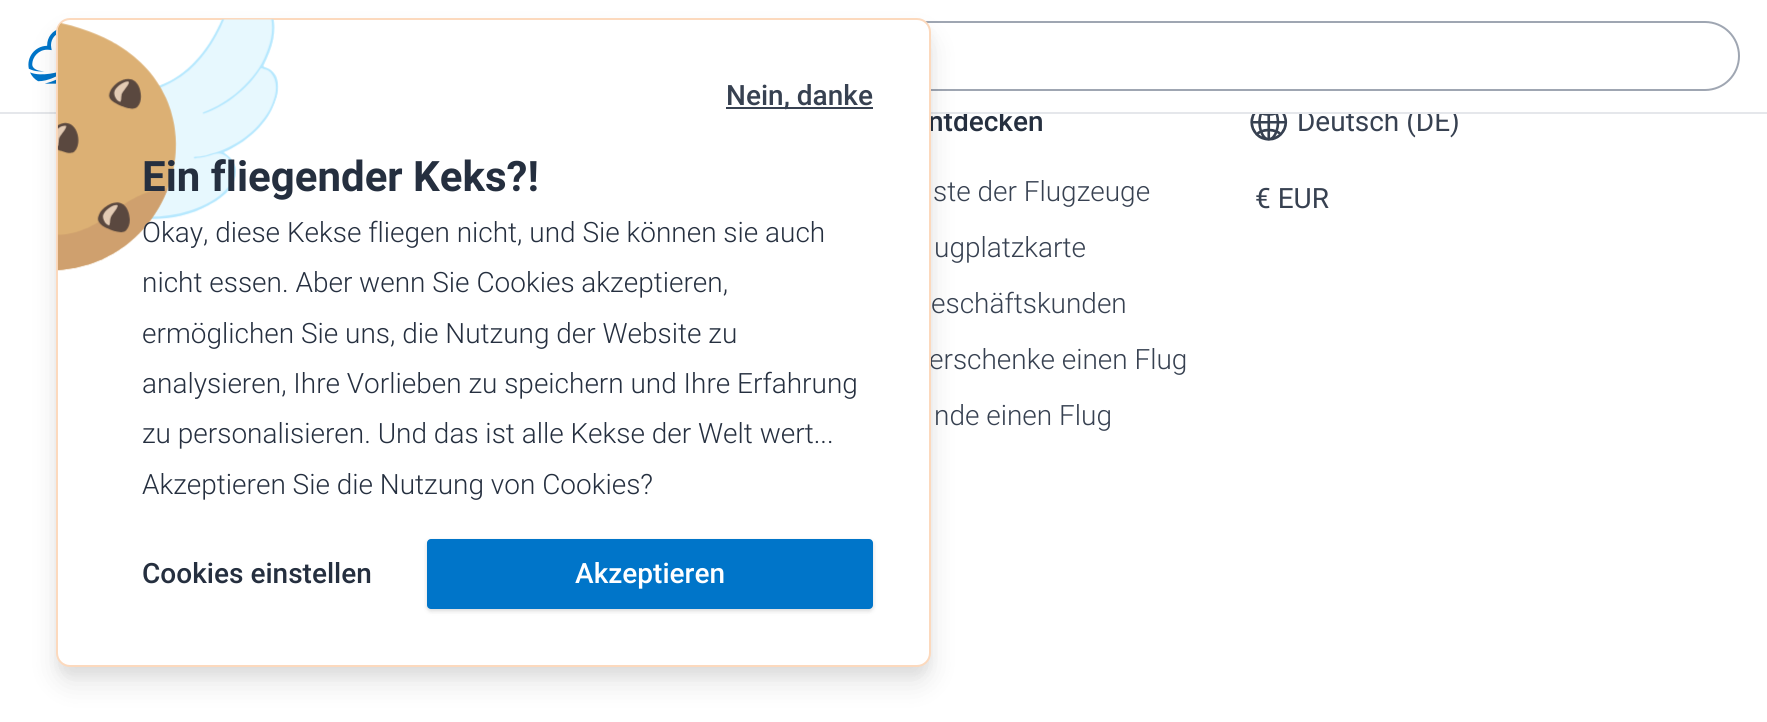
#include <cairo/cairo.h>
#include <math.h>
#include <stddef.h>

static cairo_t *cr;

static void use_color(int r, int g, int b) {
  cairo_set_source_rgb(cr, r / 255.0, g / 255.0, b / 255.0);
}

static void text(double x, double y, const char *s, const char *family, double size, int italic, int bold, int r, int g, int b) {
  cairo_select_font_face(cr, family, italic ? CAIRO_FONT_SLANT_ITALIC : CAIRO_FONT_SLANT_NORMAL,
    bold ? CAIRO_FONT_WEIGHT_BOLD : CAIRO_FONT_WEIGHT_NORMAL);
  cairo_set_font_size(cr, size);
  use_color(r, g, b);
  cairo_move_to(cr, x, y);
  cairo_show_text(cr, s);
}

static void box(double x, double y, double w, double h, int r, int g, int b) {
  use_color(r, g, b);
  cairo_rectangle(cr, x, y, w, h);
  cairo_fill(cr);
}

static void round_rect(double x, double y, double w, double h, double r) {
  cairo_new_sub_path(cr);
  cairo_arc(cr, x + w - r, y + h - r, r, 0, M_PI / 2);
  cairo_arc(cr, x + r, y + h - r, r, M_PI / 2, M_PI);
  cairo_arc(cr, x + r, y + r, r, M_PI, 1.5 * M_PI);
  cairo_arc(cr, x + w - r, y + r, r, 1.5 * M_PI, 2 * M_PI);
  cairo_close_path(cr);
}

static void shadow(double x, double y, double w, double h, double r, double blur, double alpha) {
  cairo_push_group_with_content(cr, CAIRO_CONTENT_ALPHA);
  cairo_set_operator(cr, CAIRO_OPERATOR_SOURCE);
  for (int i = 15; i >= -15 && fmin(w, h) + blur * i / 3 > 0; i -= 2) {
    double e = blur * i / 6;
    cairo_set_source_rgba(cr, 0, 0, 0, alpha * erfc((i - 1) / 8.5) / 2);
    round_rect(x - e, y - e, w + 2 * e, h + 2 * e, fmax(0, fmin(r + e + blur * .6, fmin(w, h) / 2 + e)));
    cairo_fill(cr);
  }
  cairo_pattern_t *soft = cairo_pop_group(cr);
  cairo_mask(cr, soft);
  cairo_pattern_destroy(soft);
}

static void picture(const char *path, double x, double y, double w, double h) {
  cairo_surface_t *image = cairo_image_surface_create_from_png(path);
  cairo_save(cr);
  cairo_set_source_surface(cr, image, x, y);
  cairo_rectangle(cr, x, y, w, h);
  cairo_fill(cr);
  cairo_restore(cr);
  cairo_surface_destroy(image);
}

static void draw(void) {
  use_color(255, 255, 255);
  cairo_paint(cr);
  picture("img_01.png", 28, 29, 29, 55);
  round_rect(201, 22, 1538, 68, 34);
  use_color(159, 166, 178);
  cairo_stroke(cr);
  picture("img_03.png", 1250, 114, 38, 27);
  text(928, 131, "ntdecken", "Roboto Medium", 28, 0, 0, 37, 47, 63);
  text(933, 201, "ste der Flugzeuge", "Roboto Light", 28, 0, 0, 55, 65, 81);
  text(934, 257, "ugplatzkarte", "Roboto Light", 28, 0, 0, 55, 65, 81);
  text(931, 313, "eschäftskunden", "Roboto Light", 28, 0, 0, 55, 65, 81);
  text(929, 369, "erschenke einen Flug", "Roboto Light", 28, 0, 0, 55, 65, 81);
  text(934, 425, "nde einen Flug", "Roboto Light", 28, 0, 0, 55, 65, 81);
  text(1297, 131, "Deutsch (DE)", "Roboto", 28, 0, 0, 55, 65, 81);
  box(0, 112, 1767, 2, 229, 231, 235);
  use_color(0, 0, 0);
  shadow(56, 25, 875, 649, 14, 5, 0.05);
  box(963, 108, 492, 4, 255, 255, 255);
  use_color(0, 0, 0);
  shadow(56, 35, 875, 649, 14, 13, 0.1);
  use_color(255, 255, 255);
  round_rect(57, 19, 873, 647, 13);
  cairo_fill_preserve(cr);
  use_color(252, 217, 189);
  cairo_stroke(cr);
  use_color(0, 0, 0);
  shadow(427, 541, 446, 70, 4, 2.5, 0.1);
  shadow(427, 541, 446, 70, 4, 2, 0.06);
  use_color(0, 117, 201);
  round_rect(427, 539, 446, 70, 4);
  cairo_fill(cr);
  text(575, 583, "Akzeptieren", "Roboto Medium", 28, 0, 0, 255, 255, 255);
  text(142, 583, "Cookies einstellen", "Roboto Medium", 28, 0, 0, 37, 47, 63);
  text(142, 494, "Akzeptieren Sie die Nutzung von Cookies?", "Roboto Light", 28, 0, 0, 37, 47, 63);
  text(142, 443, "zu personalisieren. Und das ist alle Kekse der Welt wert...", "Roboto Light", 28, 0, 0, 37, 47, 63);
  text(142, 393, "analysieren, Ihre Vorlieben zu speichern und Ihre Erfahrung", "Roboto Light", 28, 0, 0, 37, 47, 63);
  text(142, 343, "ermöglichen Sie uns, die Nutzung der Website zu", "Roboto Light", 28, 0, 0, 37, 47, 63);
  text(142, 292, "nicht essen. Aber wenn Sie Cookies akzeptieren,", "Roboto Light", 28, 0, 0, 37, 47, 63);
  picture("img_02.png", 57, 19, 222, 252);
  text(142, 242, "Okay, diese Kekse fliegen nicht, und Sie können sie auch", "Roboto Light", 28, 0, 0, 37, 47, 63);
  text(142, 191, "Ein fliegender Keks?!", "Roboto", 42, 0, 1, 37, 47, 63);
  box(726, 107, 147, 2, 55, 65, 81);
  text(726, 105, "Nein, danke", "Roboto Medium", 28, 0, 0, 55, 65, 81);
  text(1255, 208, "€ EUR", "Roboto", 28, 0, 0, 55, 65, 81);
}

int main(void) {
  cairo_surface_t *surface = cairo_image_surface_create(CAIRO_FORMAT_RGB24, 1767, 722);
  cr = cairo_create(surface);
  cairo_font_options_t *options = cairo_font_options_create();
  cairo_font_options_set_hint_metrics(options, CAIRO_HINT_METRICS_OFF);
  cairo_font_options_set_hint_style(options, CAIRO_HINT_STYLE_NONE);
  cairo_set_font_options(cr, options);
  cairo_set_miter_limit(cr, 4);
  draw();
  cairo_surface_write_to_png(surface, "out.png");
  cairo_font_options_destroy(options);
  cairo_destroy(cr);
  cairo_surface_destroy(surface);
  return 0;
}
